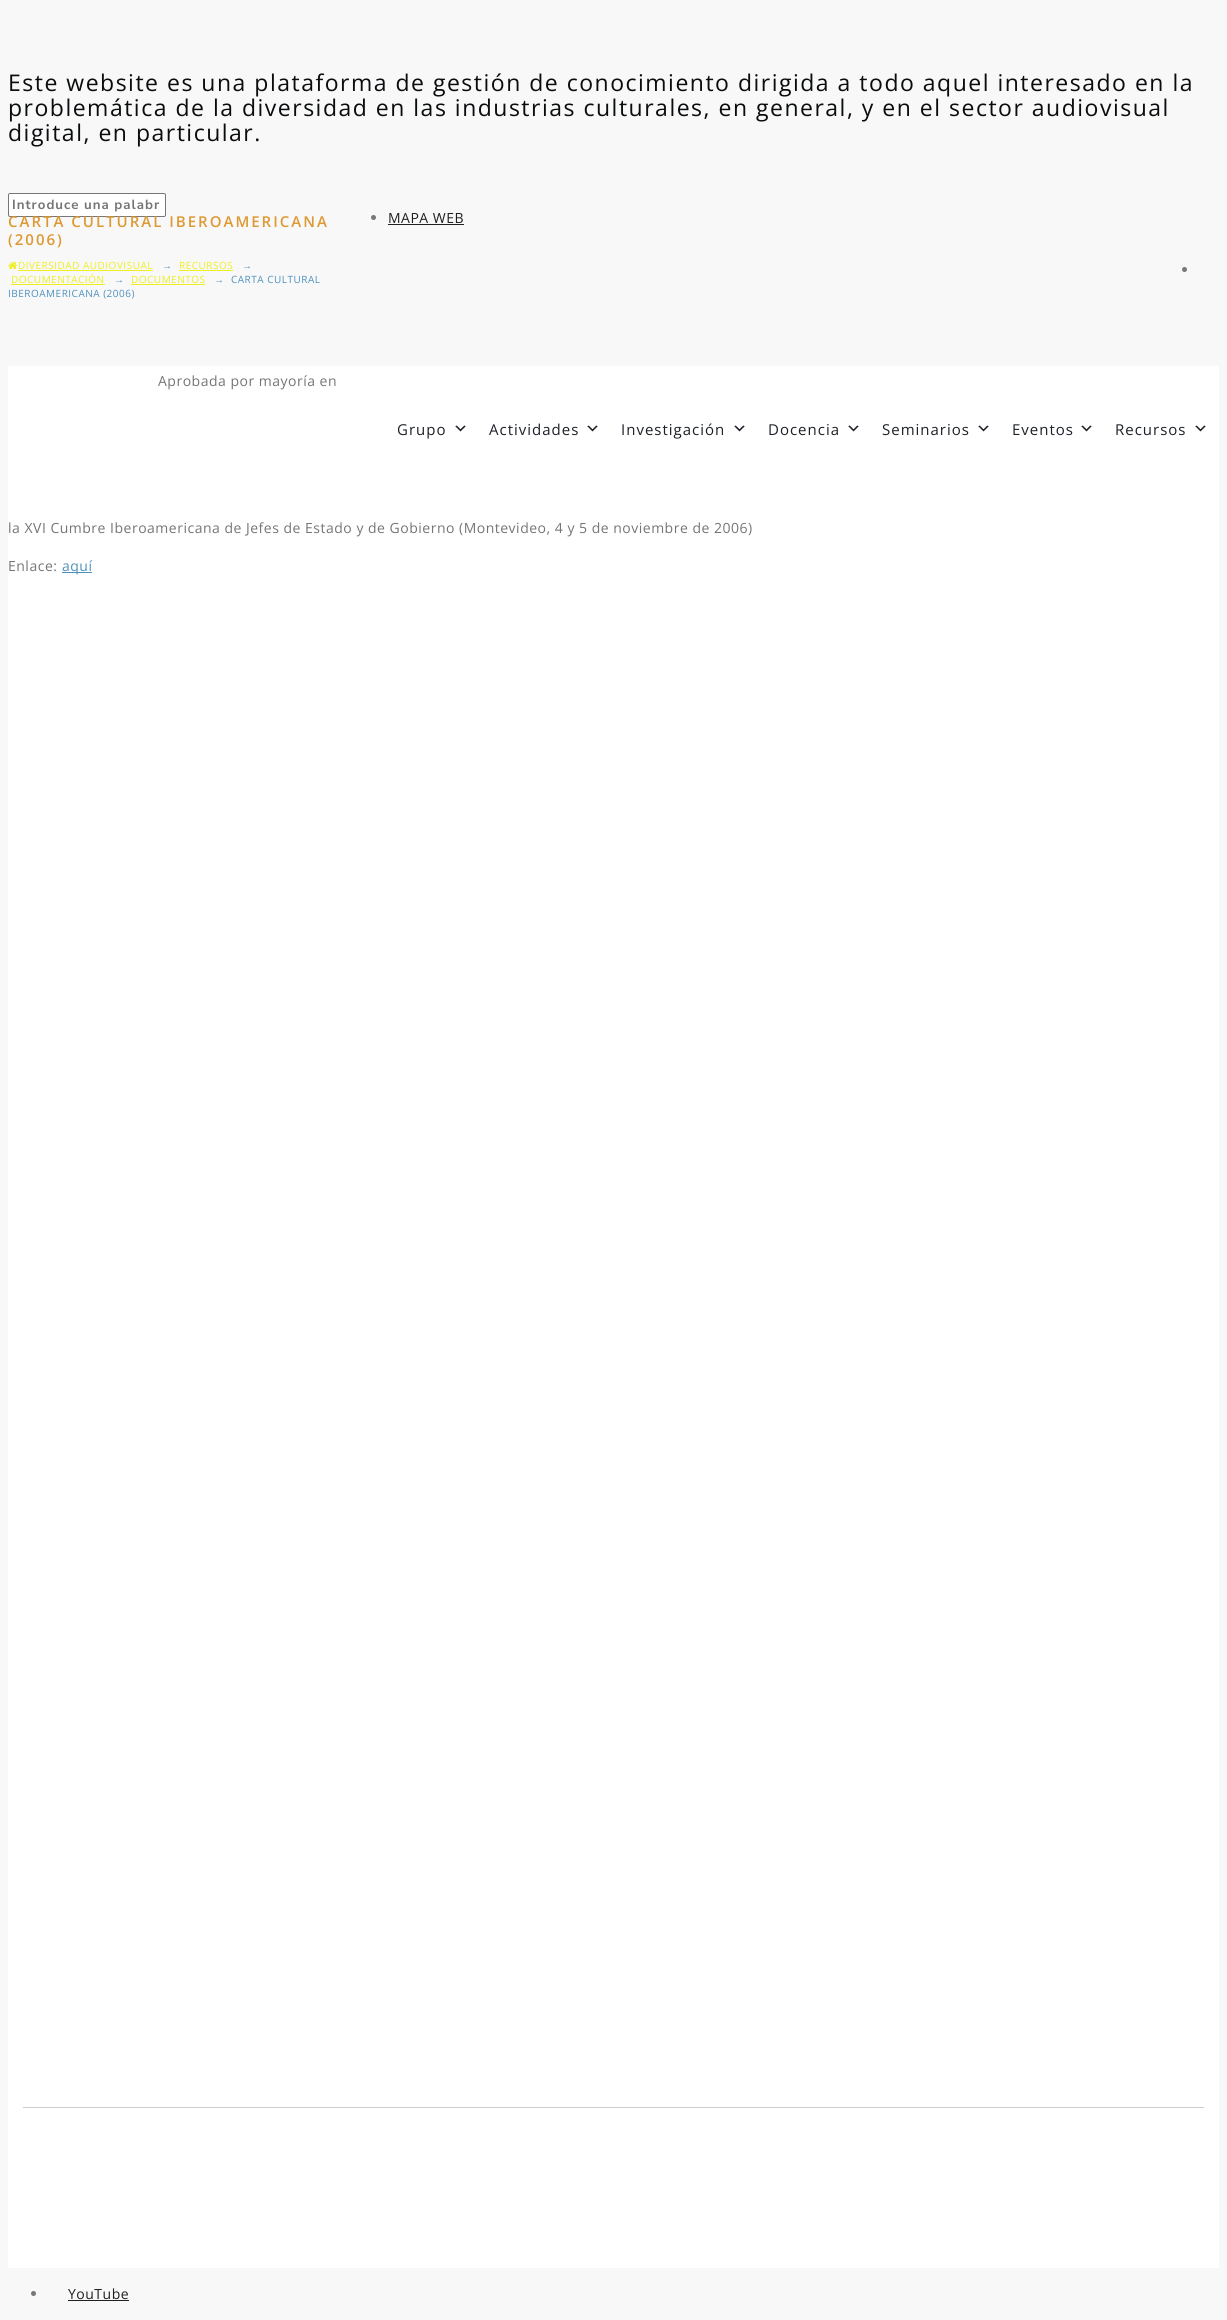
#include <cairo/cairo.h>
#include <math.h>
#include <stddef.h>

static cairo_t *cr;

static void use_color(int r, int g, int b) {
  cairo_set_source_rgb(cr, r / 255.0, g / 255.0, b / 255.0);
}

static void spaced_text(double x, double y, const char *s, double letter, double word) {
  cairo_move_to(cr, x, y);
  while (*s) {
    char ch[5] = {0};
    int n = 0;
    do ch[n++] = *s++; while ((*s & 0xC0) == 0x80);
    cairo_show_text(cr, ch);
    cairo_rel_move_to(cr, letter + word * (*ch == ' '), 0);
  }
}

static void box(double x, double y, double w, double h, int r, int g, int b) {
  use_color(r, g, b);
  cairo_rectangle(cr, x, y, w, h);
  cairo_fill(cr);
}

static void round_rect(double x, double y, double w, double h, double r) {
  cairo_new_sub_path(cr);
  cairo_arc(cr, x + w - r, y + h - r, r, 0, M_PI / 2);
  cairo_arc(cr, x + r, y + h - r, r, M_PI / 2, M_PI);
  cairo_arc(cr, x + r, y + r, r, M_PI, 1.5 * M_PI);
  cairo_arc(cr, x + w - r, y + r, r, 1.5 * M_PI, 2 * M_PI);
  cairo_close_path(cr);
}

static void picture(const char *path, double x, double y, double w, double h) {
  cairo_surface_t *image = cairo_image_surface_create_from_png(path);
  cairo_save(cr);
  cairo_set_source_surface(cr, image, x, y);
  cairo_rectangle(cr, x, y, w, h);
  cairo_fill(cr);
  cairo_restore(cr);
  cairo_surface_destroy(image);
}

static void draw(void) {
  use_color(248, 248, 248);
  cairo_paint(cr);
  use_color(255, 255, 255);
  round_rect(8.5, 193.5, 157, 23, 1.5);
  cairo_fill_preserve(cr);
  use_color(118, 118, 118);
  cairo_set_line_width(cr, 1);
  cairo_stroke(cr);
  use_color(120, 120, 120);
  cairo_arc(cr, 373.5, 217.5, 2.5, 0, 2 * M_PI);
  cairo_fill(cr);
  box(388, 224, 76, 1, 32, 32, 32);
  use_color(120, 120, 120);
  cairo_arc(cr, 1184.5, 269.5, 2.5, 0, 2 * M_PI);
  cairo_fill(cr);
  box(8, 366, 1211, 1902, 255, 255, 255);
  picture("img_01.png", 455, 425, 11, 7);
  picture("img_01.png", 587, 425, 11, 7);
  picture("img_01.png", 734, 425, 11, 7);
  picture("img_01.png", 848, 425, 11, 7);
  picture("img_01.png", 978, 425, 11, 7);
  picture("img_01.png", 1081, 425, 11, 7);
  picture("img_01.png", 1195, 425, 11, 7);
  picture("img_02.png", 8, 261, 10, 8);
  box(18, 270, 135, 1, 238, 238, 34);
  box(179, 270, 54, 1, 238, 238, 34);
  box(11, 284, 94, 1, 238, 238, 34);
  box(131, 284, 74, 1, 238, 238, 34);
  box(62, 572, 30, 1, 77, 144, 190);
  box(23, 2107, 1181, 1, 204, 204, 204);
  use_color(120, 120, 120);
  cairo_arc(cr, 33.5, 2293.5, 2.5, 0, 2 * M_PI);
  cairo_fill(cr);
  box(68, 2300, 61, 1, 32, 32, 32);
  cairo_select_font_face(cr, "Open Sans", CAIRO_FONT_SLANT_NORMAL, CAIRO_FONT_WEIGHT_NORMAL);
  cairo_set_font_size(cr, 23);
  use_color(10, 12, 14);
  spaced_text(8, 91, "Este website es una plataforma de gestión de conocimiento dirigida a todo aquel interesado en la", 1.5, 0);
  spaced_text(8, 116, "problemática de la diversidad en las industrias culturales, en general, y en el sector audiovisual", 1.5, 0);
  spaced_text(8, 141, "digital, en particular.", 1.5, 0);
  cairo_select_font_face(cr, "Nunito Sans", CAIRO_FONT_SLANT_NORMAL, CAIRO_FONT_WEIGHT_BOLD);
  cairo_set_font_size(cr, 13.25);
  use_color(117, 117, 117);
  spaced_text(12, 209, "Introduce una palabr", 1, 0);
  cairo_select_font_face(cr, "Open Sans", CAIRO_FONT_SLANT_NORMAL, CAIRO_FONT_WEIGHT_NORMAL);
  cairo_set_font_size(cr, 14);
  use_color(32, 32, 32);
  spaced_text(388, 223, "MAPA WEB", 0.5, 0);
  cairo_set_font_size(cr, 15);
  use_color(29, 33, 39);
  spaced_text(397, 435, "Grupo", 1, 0);
  spaced_text(489, 435, "Actividades", 1, 0);
  spaced_text(621, 435, "Investigación", 1, 0);
  spaced_text(768, 435, "Docencia", 1, 0);
  spaced_text(882, 435, "Seminarios", 1, 0);
  spaced_text(1012, 435, "Eventos", 1, 0);
  spaced_text(1115, 435, "Recursos", 1, 0);
  cairo_select_font_face(cr, "Open Sans SemiBold", CAIRO_FONT_SLANT_NORMAL, CAIRO_FONT_WEIGHT_NORMAL);
  use_color(221, 153, 51);
  spaced_text(8, 227, "CARTA CULTURAL IBEROAMERICANA", 2, 0);
  spaced_text(8, 245, "(2006)", 2, 0);
  cairo_select_font_face(cr, "Open Sans", CAIRO_FONT_SLANT_NORMAL, CAIRO_FONT_WEIGHT_NORMAL);
  cairo_set_font_size(cr, 10);
  use_color(238, 238, 34);
  spaced_text(18, 269, "DIVERSIDAD AUDIOVISUAL", 0.5, 0);
  cairo_select_font_face(cr, "Liberation Sans", CAIRO_FONT_SLANT_NORMAL, CAIRO_FONT_WEIGHT_NORMAL);
  use_color(77, 144, 190);
  spaced_text(162, 269, "→", 0.5, 0);
  cairo_select_font_face(cr, "Open Sans", CAIRO_FONT_SLANT_NORMAL, CAIRO_FONT_WEIGHT_NORMAL);
  use_color(238, 238, 34);
  spaced_text(179, 269, "RECURSOS", 0.5, 0);
  cairo_select_font_face(cr, "Liberation Sans", CAIRO_FONT_SLANT_NORMAL, CAIRO_FONT_WEIGHT_NORMAL);
  use_color(77, 144, 190);
  spaced_text(242, 269, "→", 0.5, 0);
  cairo_select_font_face(cr, "Open Sans", CAIRO_FONT_SLANT_NORMAL, CAIRO_FONT_WEIGHT_NORMAL);
  use_color(238, 238, 34);
  spaced_text(11, 283, "DOCUMENTACIÓN", 0.5, 0);
  cairo_select_font_face(cr, "Liberation Sans", CAIRO_FONT_SLANT_NORMAL, CAIRO_FONT_WEIGHT_NORMAL);
  use_color(77, 144, 190);
  spaced_text(114, 283, "→", 0.5, 0);
  cairo_select_font_face(cr, "Open Sans", CAIRO_FONT_SLANT_NORMAL, CAIRO_FONT_WEIGHT_NORMAL);
  use_color(238, 238, 34);
  spaced_text(131, 283, "DOCUMENTOS", 0.5, 0);
  cairo_select_font_face(cr, "Liberation Sans", CAIRO_FONT_SLANT_NORMAL, CAIRO_FONT_WEIGHT_NORMAL);
  use_color(77, 144, 190);
  spaced_text(214, 283, "→", 0.5, 0);
  cairo_select_font_face(cr, "Open Sans", CAIRO_FONT_SLANT_NORMAL, CAIRO_FONT_WEIGHT_NORMAL);
  spaced_text(231, 283, "CARTA CULTURAL", 0.5, 0);
  spaced_text(8, 297, "IBEROAMERICANA (2006)", 0.5, 0);
  cairo_set_font_size(cr, 14);
  use_color(117, 117, 117);
  spaced_text(158, 386, "Aprobada por mayoría en", 0.5, 0);
  spaced_text(8, 533, "la XVI Cumbre Iberoamericana de Jefes de Estado y de Gobierno (Montevideo, 4 y 5 de noviembre de 2006)", 0.5, 0);
  spaced_text(8, 571, "Enlace:", 0.5, 0);
  use_color(77, 144, 190);
  spaced_text(62, 571, "aquí", 0.5, 0);
  use_color(32, 32, 32);
  spaced_text(68, 2299, "YouTube", 0.5, 0);
}

int main(void) {
  cairo_surface_t *surface = cairo_image_surface_create(CAIRO_FORMAT_RGB24, 1227, 2320);
  cr = cairo_create(surface);
  cairo_font_options_t *options = cairo_font_options_create();
  cairo_font_options_set_hint_metrics(options, CAIRO_HINT_METRICS_OFF);
  cairo_font_options_set_hint_style(options, CAIRO_HINT_STYLE_NONE);
  cairo_set_font_options(cr, options);
  cairo_set_miter_limit(cr, 4);
  draw();
  cairo_surface_write_to_png(surface, "out.png");
  cairo_font_options_destroy(options);
  cairo_destroy(cr);
  cairo_surface_destroy(surface);
  return 0;
}
